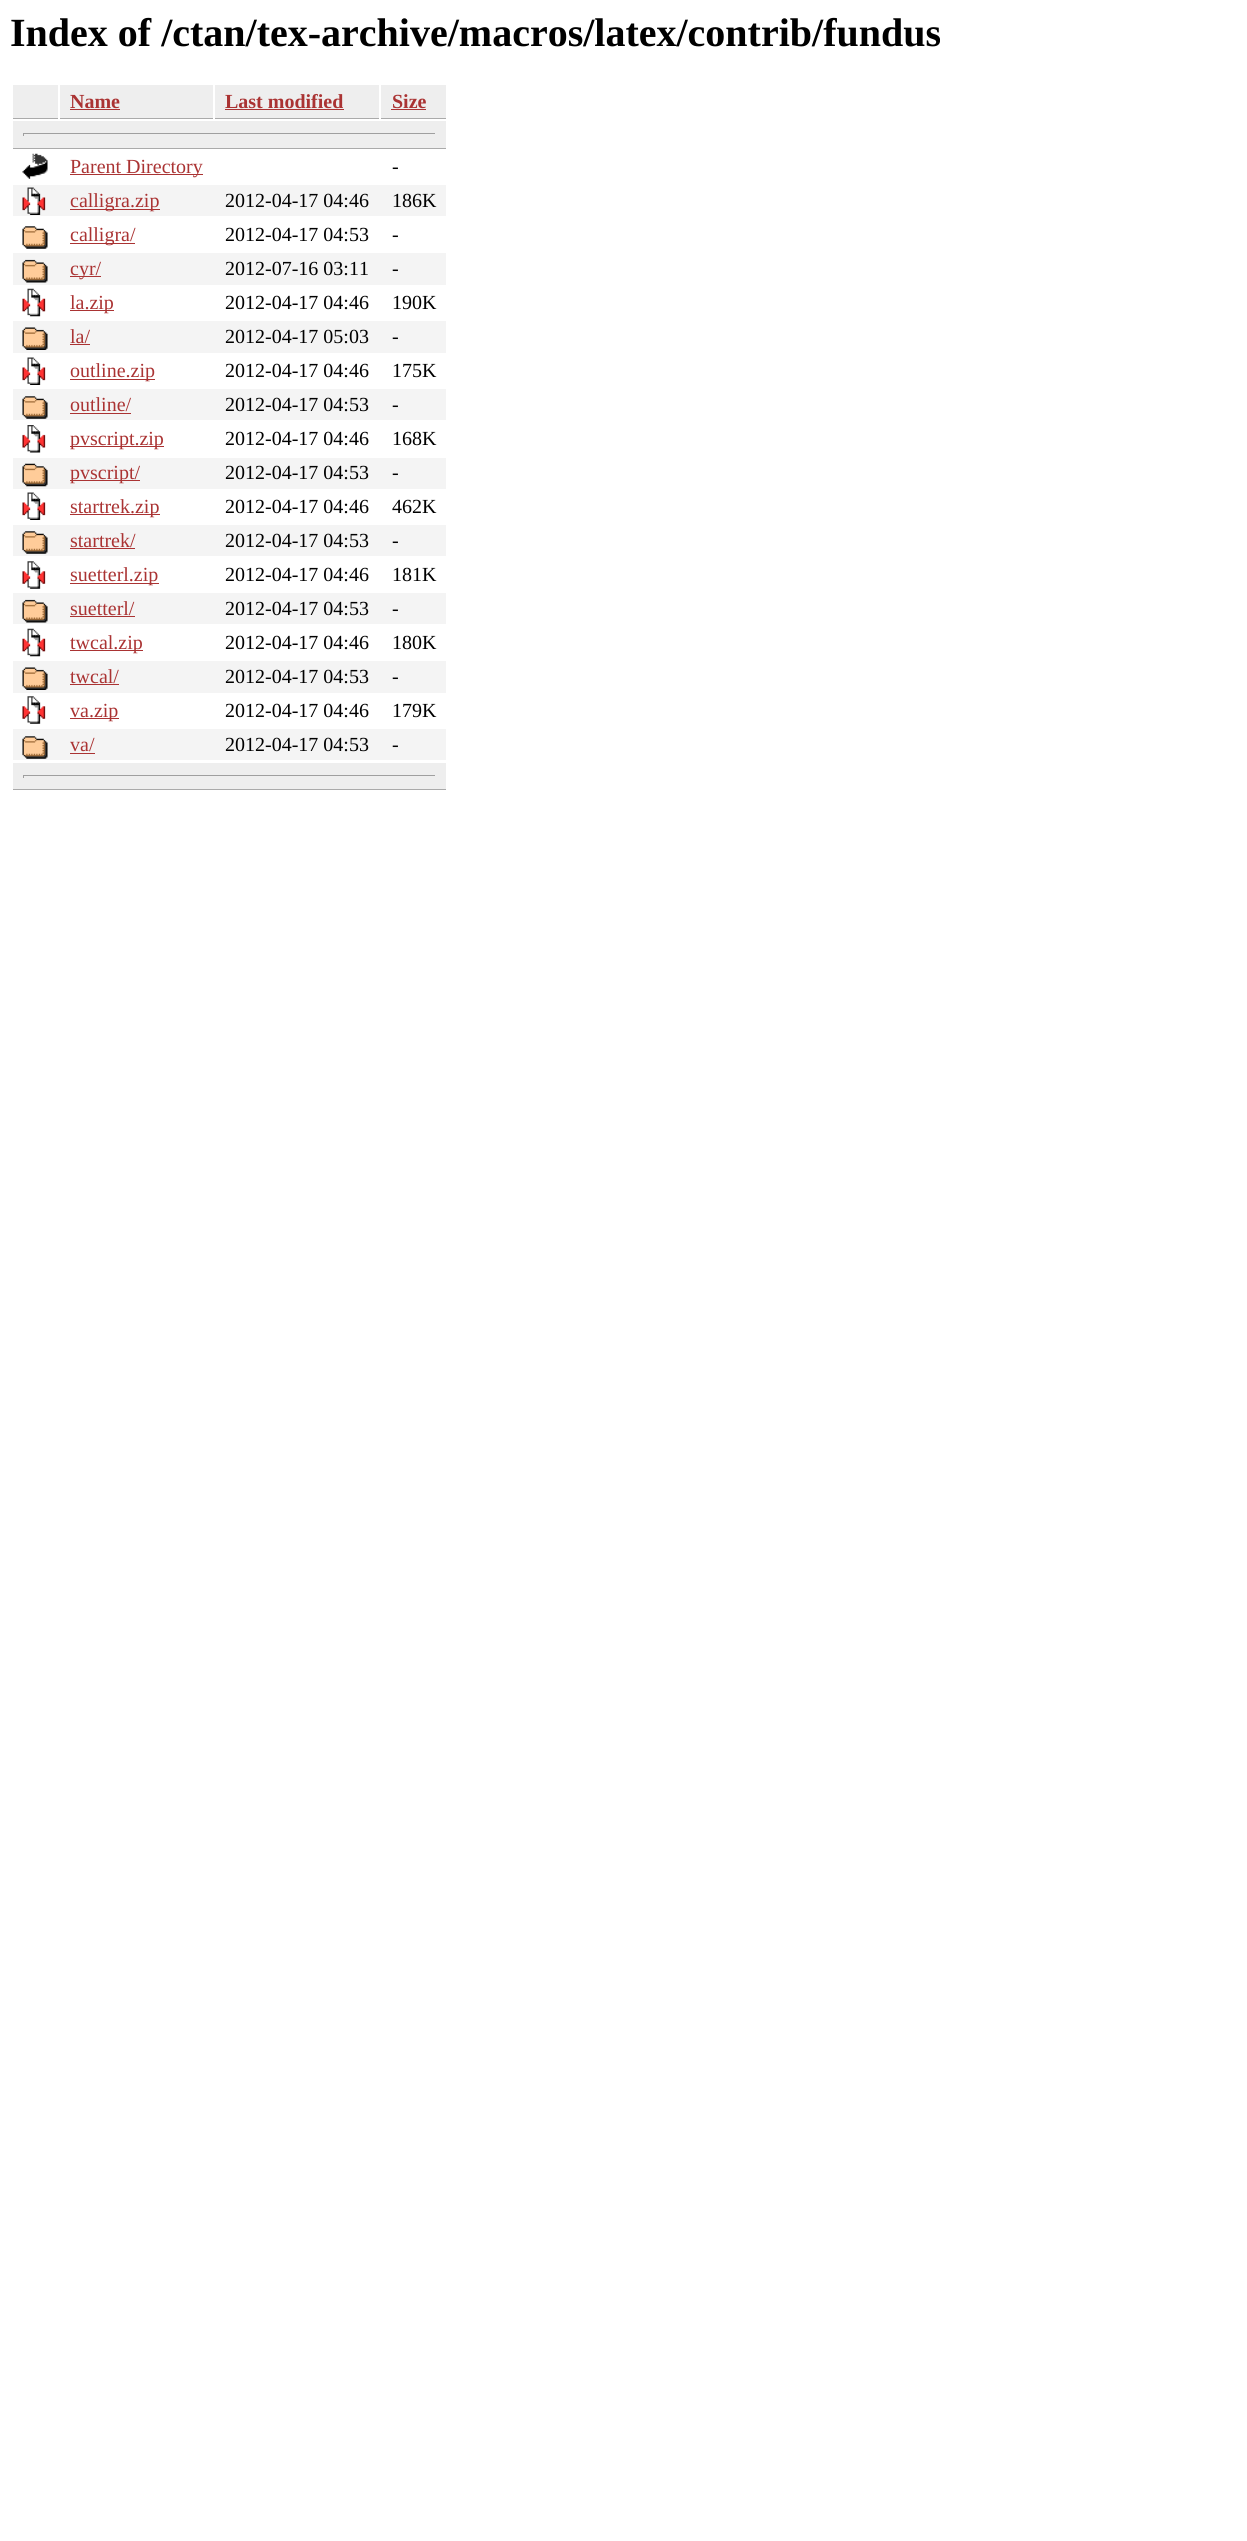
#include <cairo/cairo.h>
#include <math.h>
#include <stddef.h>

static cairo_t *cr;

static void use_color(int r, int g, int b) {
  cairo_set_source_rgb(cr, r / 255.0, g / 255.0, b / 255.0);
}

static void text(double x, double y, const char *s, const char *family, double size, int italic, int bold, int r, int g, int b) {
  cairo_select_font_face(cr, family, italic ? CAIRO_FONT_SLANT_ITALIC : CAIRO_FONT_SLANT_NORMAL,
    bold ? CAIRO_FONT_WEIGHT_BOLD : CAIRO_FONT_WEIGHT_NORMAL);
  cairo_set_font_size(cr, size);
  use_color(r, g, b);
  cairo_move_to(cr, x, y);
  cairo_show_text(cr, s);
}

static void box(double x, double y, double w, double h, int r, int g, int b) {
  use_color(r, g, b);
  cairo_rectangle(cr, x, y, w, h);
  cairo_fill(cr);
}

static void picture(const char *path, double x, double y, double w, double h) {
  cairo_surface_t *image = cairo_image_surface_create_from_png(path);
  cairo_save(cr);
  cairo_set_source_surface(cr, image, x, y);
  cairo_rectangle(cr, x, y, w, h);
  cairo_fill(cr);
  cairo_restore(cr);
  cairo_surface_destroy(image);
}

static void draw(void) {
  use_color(255, 255, 255);
  cairo_paint(cr);
  box(13, 85, 45, 33, 238, 238, 238);
  box(13, 118, 45, 1, 170, 170, 170);
  box(60, 85, 153, 33, 238, 238, 238);
  box(60, 118, 153, 1, 170, 170, 170);
  box(70, 109, 50, 1, 170, 51, 51);
  box(215, 85, 164, 33, 238, 238, 238);
  box(215, 118, 164, 1, 170, 170, 170);
  box(225, 109, 119, 1, 170, 51, 51);
  box(381, 85, 65, 33, 238, 238, 238);
  box(381, 118, 65, 1, 170, 170, 170);
  box(391, 109, 35, 1, 170, 51, 51);
  box(13, 121, 433, 27, 238, 238, 238);
  box(13, 148, 433, 1, 170, 170, 170);
  box(23, 133, 413, 1, 159, 159, 159);
  box(435, 133, 1, 3, 238, 238, 238);
  box(23, 133, 1, 3, 159, 159, 159);
  picture("img_01.png", 22, 153, 26, 26);
  box(70, 174, 133, 1, 170, 51, 51);
  box(13, 185, 433, 31, 244, 244, 244);
  picture("img_02.png", 22, 187, 24, 28);
  box(70, 209, 90, 1, 170, 51, 51);
  picture("img_03.png", 22, 226, 26, 23);
  box(70, 243, 65, 1, 170, 51, 51);
  box(13, 253, 433, 32, 244, 244, 244);
  picture("img_04.png", 22, 259, 26, 24);
  box(70, 276, 31, 1, 170, 51, 51);
  picture("img_05.png", 22, 288, 24, 29);
  box(70, 310, 44, 1, 170, 51, 51);
  box(13, 321, 433, 32, 244, 244, 244);
  picture("img_06.png", 22, 327, 26, 23);
  box(70, 344, 20, 1, 170, 51, 51);
  picture("img_07.png", 22, 357, 24, 28);
  box(70, 379, 85, 1, 170, 51, 51);
  box(13, 389, 433, 31, 244, 244, 244);
  picture("img_08.png", 22, 396, 26, 23);
  box(70, 413, 61, 1, 170, 51, 51);
  picture("img_09.png", 22, 425, 24, 28);
  box(70, 446, 94, 1, 170, 51, 51);
  box(13, 458, 433, 31, 244, 244, 244);
  picture("img_10.png", 22, 463, 26, 24);
  box(70, 480, 70, 1, 170, 51, 51);
  picture("img_07.png", 22, 492, 24, 28);
  box(70, 514, 90, 1, 170, 51, 51);
  box(13, 525, 433, 31, 244, 244, 244);
  picture("img_08.png", 22, 531, 26, 23);
  box(70, 548, 65, 1, 170, 51, 51);
  picture("img_11.png", 22, 561, 24, 28);
  box(70, 583, 89, 1, 170, 51, 51);
  box(13, 593, 433, 31, 244, 244, 244);
  picture("img_04.png", 22, 599, 26, 24);
  box(70, 616, 65, 1, 170, 51, 51);
  picture("img_12.png", 22, 628, 24, 29);
  box(70, 650, 73, 1, 170, 51, 51);
  box(13, 661, 433, 32, 244, 244, 244);
  picture("img_06.png", 22, 667, 26, 23);
  box(70, 684, 49, 1, 170, 51, 51);
  picture("img_11.png", 22, 696, 24, 28);
  box(70, 718, 49, 1, 170, 51, 51);
  box(13, 729, 433, 31, 244, 244, 244);
  picture("img_08.png", 22, 736, 26, 23);
  box(70, 753, 25, 1, 170, 51, 51);
  box(13, 763, 433, 26, 238, 238, 238);
  box(13, 789, 433, 1, 170, 170, 170);
  box(23, 775, 413, 1, 159, 159, 159);
  box(435, 775, 1, 3, 238, 238, 238);
  box(23, 775, 1, 3, 159, 159, 159);
  text(10, 46, "Index of /ctan/tex-archive/macros/latex/contrib/fundus", "Liberation Serif", 40, 0, 1, 0, 0, 0);
  text(70, 108, "Name", "Liberation Serif", 20, 0, 1, 170, 51, 51);
  text(225, 108, "Last modified", "Liberation Serif", 20, 0, 1, 170, 51, 51);
  text(392, 108, "Size", "Liberation Serif", 20, 0, 1, 170, 51, 51);
  text(70, 173, "Parent Directory", "Liberation Serif", 20, 0, 0, 170, 51, 51);
  text(392, 173, "-", "Liberation Serif", 20, 0, 0, 0, 0, 0);
  text(70, 207, "calligra.zip", "Liberation Serif", 20, 0, 0, 170, 51, 51);
  text(225, 207, "2012-04-17 04:46", "Liberation Serif", 20, 0, 0, 0, 0, 0);
  text(392, 207, "186K", "Liberation Serif", 20, 0, 0, 0, 0, 0);
  text(70, 241, "calligra/", "Liberation Serif", 20, 0, 0, 170, 51, 51);
  text(225, 241, "2012-04-17 04:53", "Liberation Serif", 20, 0, 0, 0, 0, 0);
  text(392, 241, "-", "Liberation Serif", 20, 0, 0, 0, 0, 0);
  text(70, 275, "cyr/", "Liberation Serif", 20, 0, 0, 170, 51, 51);
  text(225, 275, "2012-07-16 03:11", "Liberation Serif", 20, 0, 0, 0, 0, 0);
  text(392, 275, "-", "Liberation Serif", 20, 0, 0, 0, 0, 0);
  text(70, 309, "la.zip", "Liberation Serif", 20, 0, 0, 170, 51, 51);
  text(225, 309, "2012-04-17 04:46", "Liberation Serif", 20, 0, 0, 0, 0, 0);
  text(392, 309, "190K", "Liberation Serif", 20, 0, 0, 0, 0, 0);
  text(70, 343, "la/", "Liberation Serif", 20, 0, 0, 170, 51, 51);
  text(225, 343, "2012-04-17 05:03", "Liberation Serif", 20, 0, 0, 0, 0, 0);
  text(392, 343, "-", "Liberation Serif", 20, 0, 0, 0, 0, 0);
  text(70, 377, "outline.zip", "Liberation Serif", 20, 0, 0, 170, 51, 51);
  text(225, 377, "2012-04-17 04:46", "Liberation Serif", 20, 0, 0, 0, 0, 0);
  text(392, 377, "175K", "Liberation Serif", 20, 0, 0, 0, 0, 0);
  text(70, 411, "outline/", "Liberation Serif", 20, 0, 0, 170, 51, 51);
  text(225, 411, "2012-04-17 04:53", "Liberation Serif", 20, 0, 0, 0, 0, 0);
  text(392, 411, "-", "Liberation Serif", 20, 0, 0, 0, 0, 0);
  text(70, 445, "pvscript.zip", "Liberation Serif", 20, 0, 0, 170, 51, 51);
  text(225, 445, "2012-04-17 04:46", "Liberation Serif", 20, 0, 0, 0, 0, 0);
  text(392, 445, "168K", "Liberation Serif", 20, 0, 0, 0, 0, 0);
  text(70, 479, "pvscript/", "Liberation Serif", 20, 0, 0, 170, 51, 51);
  text(225, 479, "2012-04-17 04:53", "Liberation Serif", 20, 0, 0, 0, 0, 0);
  text(392, 479, "-", "Liberation Serif", 20, 0, 0, 0, 0, 0);
  text(70, 513, "startrek.zip", "Liberation Serif", 20, 0, 0, 170, 51, 51);
  text(225, 513, "2012-04-17 04:46", "Liberation Serif", 20, 0, 0, 0, 0, 0);
  text(392, 513, "462K", "Liberation Serif", 20, 0, 0, 0, 0, 0);
  text(70, 547, "startrek/", "Liberation Serif", 20, 0, 0, 170, 51, 51);
  text(225, 547, "2012-04-17 04:53", "Liberation Serif", 20, 0, 0, 0, 0, 0);
  text(392, 547, "-", "Liberation Serif", 20, 0, 0, 0, 0, 0);
  text(70, 581, "suetterl.zip", "Liberation Serif", 20, 0, 0, 170, 51, 51);
  text(225, 581, "2012-04-17 04:46", "Liberation Serif", 20, 0, 0, 0, 0, 0);
  text(392, 581, "181K", "Liberation Serif", 20, 0, 0, 0, 0, 0);
  text(70, 615, "suetterl/", "Liberation Serif", 20, 0, 0, 170, 51, 51);
  text(225, 615, "2012-04-17 04:53", "Liberation Serif", 20, 0, 0, 0, 0, 0);
  text(392, 615, "-", "Liberation Serif", 20, 0, 0, 0, 0, 0);
  text(70, 649, "twcal.zip", "Liberation Serif", 20, 0, 0, 170, 51, 51);
  text(225, 649, "2012-04-17 04:46", "Liberation Serif", 20, 0, 0, 0, 0, 0);
  text(392, 649, "180K", "Liberation Serif", 20, 0, 0, 0, 0, 0);
  text(70, 683, "twcal/", "Liberation Serif", 20, 0, 0, 170, 51, 51);
  text(225, 683, "2012-04-17 04:53", "Liberation Serif", 20, 0, 0, 0, 0, 0);
  text(392, 683, "-", "Liberation Serif", 20, 0, 0, 0, 0, 0);
  text(70, 717, "va.zip", "Liberation Serif", 20, 0, 0, 170, 51, 51);
  text(225, 717, "2012-04-17 04:46", "Liberation Serif", 20, 0, 0, 0, 0, 0);
  text(392, 717, "179K", "Liberation Serif", 20, 0, 0, 0, 0, 0);
  text(70, 751, "va/", "Liberation Serif", 20, 0, 0, 170, 51, 51);
  text(225, 751, "2012-04-17 04:53", "Liberation Serif", 20, 0, 0, 0, 0, 0);
  text(392, 751, "-", "Liberation Serif", 20, 0, 0, 0, 0, 0);
}

int main(void) {
  cairo_surface_t *surface = cairo_image_surface_create(CAIRO_FORMAT_RGB24, 1247, 2541);
  cr = cairo_create(surface);
  cairo_font_options_t *options = cairo_font_options_create();
  cairo_font_options_set_hint_metrics(options, CAIRO_HINT_METRICS_OFF);
  cairo_font_options_set_hint_style(options, CAIRO_HINT_STYLE_NONE);
  cairo_set_font_options(cr, options);
  cairo_set_miter_limit(cr, 4);
  draw();
  cairo_surface_write_to_png(surface, "out.png");
  cairo_font_options_destroy(options);
  cairo_destroy(cr);
  cairo_surface_destroy(surface);
  return 0;
}
